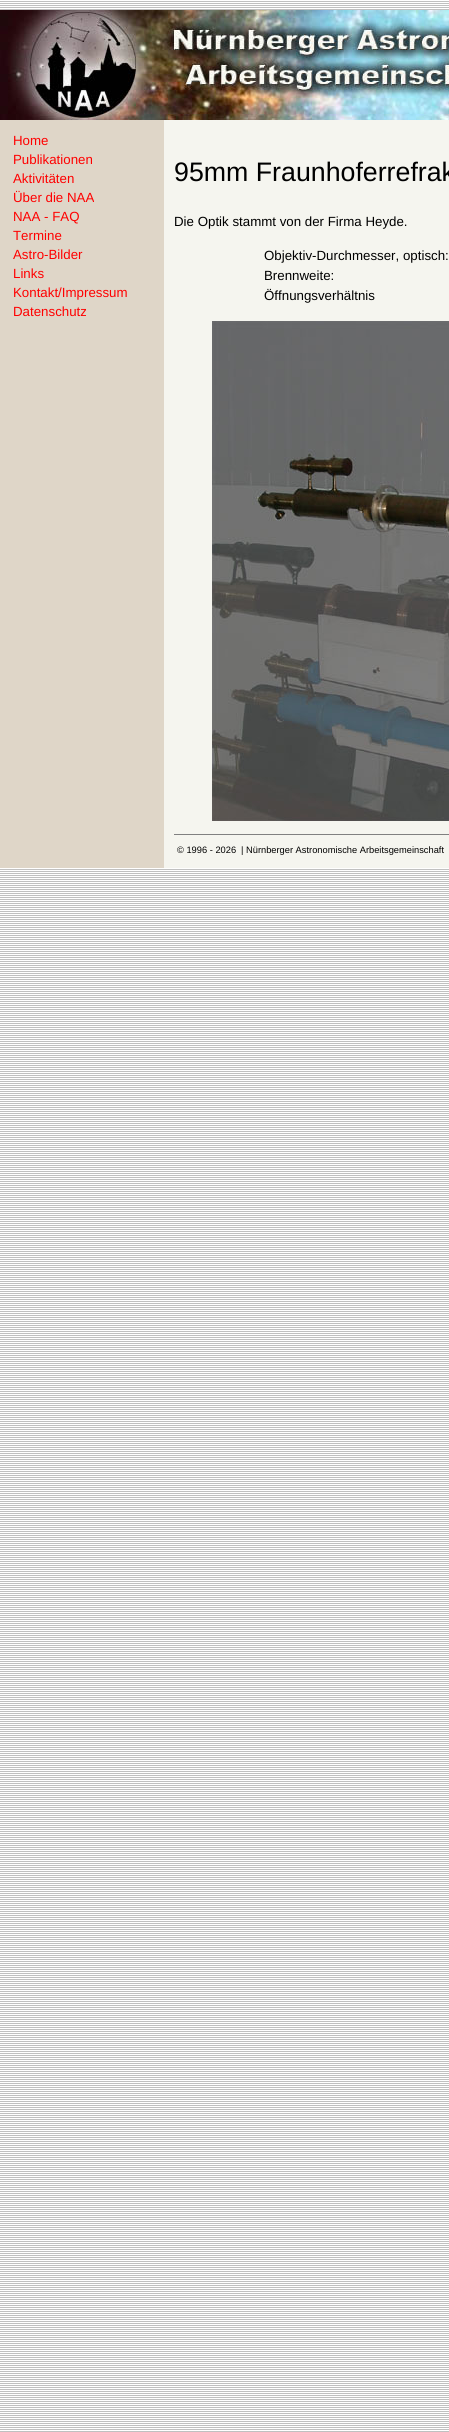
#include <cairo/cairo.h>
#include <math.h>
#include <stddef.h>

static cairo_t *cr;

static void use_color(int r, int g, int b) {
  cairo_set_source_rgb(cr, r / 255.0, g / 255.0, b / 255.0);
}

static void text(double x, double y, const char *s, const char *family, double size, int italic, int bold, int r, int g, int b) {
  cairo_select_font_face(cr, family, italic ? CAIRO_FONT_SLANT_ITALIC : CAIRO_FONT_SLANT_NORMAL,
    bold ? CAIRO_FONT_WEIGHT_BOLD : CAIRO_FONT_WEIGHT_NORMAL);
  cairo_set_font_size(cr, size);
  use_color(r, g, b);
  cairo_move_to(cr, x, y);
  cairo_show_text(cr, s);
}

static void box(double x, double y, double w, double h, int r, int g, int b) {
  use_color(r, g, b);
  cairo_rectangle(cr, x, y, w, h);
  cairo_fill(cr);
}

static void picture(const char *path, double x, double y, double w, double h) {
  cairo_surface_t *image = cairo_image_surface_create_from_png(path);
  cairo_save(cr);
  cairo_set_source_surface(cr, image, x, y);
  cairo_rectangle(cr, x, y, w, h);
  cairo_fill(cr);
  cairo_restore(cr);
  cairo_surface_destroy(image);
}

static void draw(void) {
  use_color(255, 255, 255);
  cairo_paint(cr);
  picture("img_01.png", 0, 1, 449, 2431);
  picture("img_02.png", 0, 10, 449, 110);
  box(0, 120, 164, 748, 223, 214, 200);
  box(164, 120, 285, 748, 245, 245, 239);
  picture("img_03.png", 212, 321, 237, 500);
  box(174, 834, 275, 1, 128, 128, 128);
  text(13, 145, "Home", "Liberation Sans", 13.3, 0, 0, 255, 0, 0);
  text(13, 164, "Publikationen", "Liberation Sans", 13.3, 0, 0, 255, 0, 0);
  text(13, 183, "Aktivitäten", "Liberation Sans", 13.3, 0, 0, 255, 0, 0);
  text(13, 202, "Über die NAA", "Liberation Sans", 13.3, 0, 0, 255, 0, 0);
  text(13, 221, "NAA - FAQ", "Liberation Sans", 13.3, 0, 0, 255, 0, 0);
  text(13, 240, "Termine", "Liberation Sans", 13.3, 0, 0, 255, 0, 0);
  text(13, 259, "Astro-Bilder", "Liberation Sans", 13.3, 0, 0, 255, 0, 0);
  text(13, 278, "Links", "Liberation Sans", 13.3, 0, 0, 255, 0, 0);
  text(13, 297, "Kontakt/Impressum", "Liberation Sans", 13.3, 0, 0, 255, 0, 0);
  text(13, 316, "Datenschutz", "Liberation Sans", 13.3, 0, 0, 255, 0, 0);
  text(174, 181, "95mm Fraunhoferrefrak", "Liberation Sans", 26.75, 0, 0, 0, 0, 0);
  text(174, 226, "Die Optik stammt von der Firma Heyde.", "Liberation Sans", 13.3, 0, 0, 0, 0, 0);
  text(264, 260, "Objektiv-Durchmesser, optisch:", "Liberation Sans", 13.3, 0, 0, 0, 0, 0);
  text(264, 280, "Brennweite:", "Liberation Sans", 13.3, 0, 0, 0, 0, 0);
  text(264, 300, "Öffnungsverhältnis", "Liberation Sans", 13.3, 0, 0, 0, 0, 0);
  text(177, 853, "© 1996 - 2026", "Liberation Sans", 9.3, 0, 0, 0, 0, 0);
  text(241, 853, "| Nürnberger Astronomische Arbeitsgemeinschaft", "Liberation Sans", 9.3, 0, 0, 0, 0, 0);
}

int main(void) {
  cairo_surface_t *surface = cairo_image_surface_create(CAIRO_FORMAT_RGB24, 449, 2432);
  cr = cairo_create(surface);
  cairo_font_options_t *options = cairo_font_options_create();
  cairo_font_options_set_hint_metrics(options, CAIRO_HINT_METRICS_OFF);
  cairo_font_options_set_hint_style(options, CAIRO_HINT_STYLE_NONE);
  cairo_set_font_options(cr, options);
  cairo_set_miter_limit(cr, 4);
  draw();
  cairo_surface_write_to_png(surface, "out.png");
  cairo_font_options_destroy(options);
  cairo_destroy(cr);
  cairo_surface_destroy(surface);
  return 0;
}
